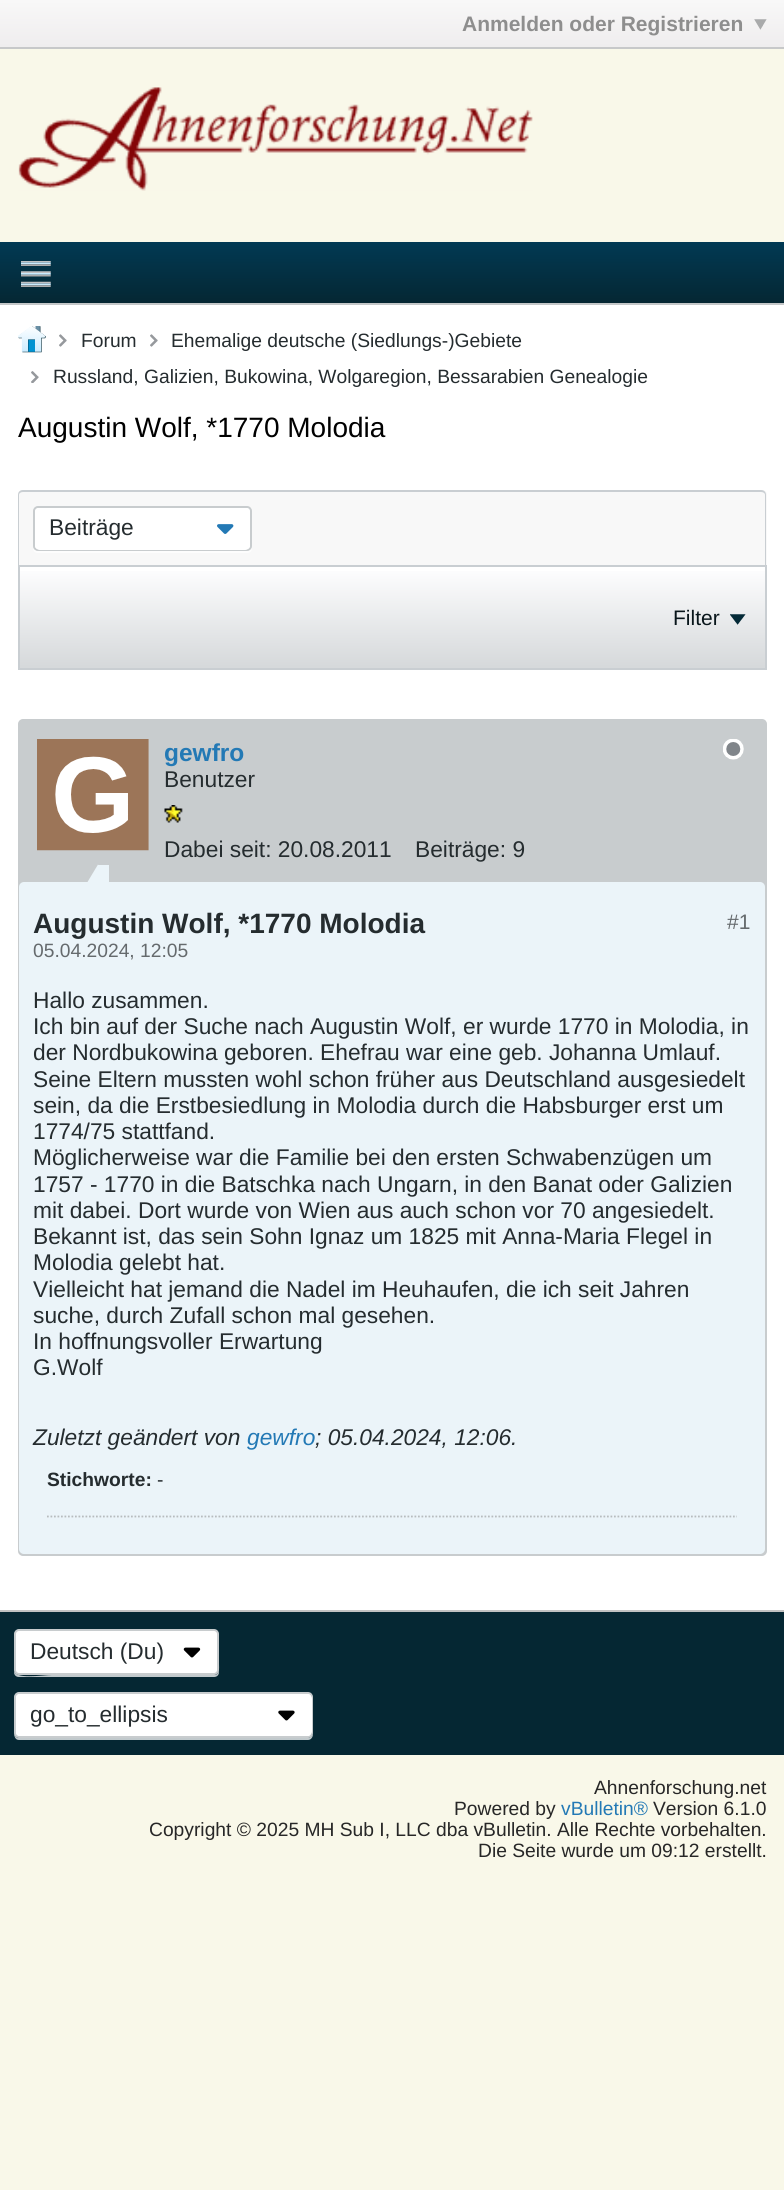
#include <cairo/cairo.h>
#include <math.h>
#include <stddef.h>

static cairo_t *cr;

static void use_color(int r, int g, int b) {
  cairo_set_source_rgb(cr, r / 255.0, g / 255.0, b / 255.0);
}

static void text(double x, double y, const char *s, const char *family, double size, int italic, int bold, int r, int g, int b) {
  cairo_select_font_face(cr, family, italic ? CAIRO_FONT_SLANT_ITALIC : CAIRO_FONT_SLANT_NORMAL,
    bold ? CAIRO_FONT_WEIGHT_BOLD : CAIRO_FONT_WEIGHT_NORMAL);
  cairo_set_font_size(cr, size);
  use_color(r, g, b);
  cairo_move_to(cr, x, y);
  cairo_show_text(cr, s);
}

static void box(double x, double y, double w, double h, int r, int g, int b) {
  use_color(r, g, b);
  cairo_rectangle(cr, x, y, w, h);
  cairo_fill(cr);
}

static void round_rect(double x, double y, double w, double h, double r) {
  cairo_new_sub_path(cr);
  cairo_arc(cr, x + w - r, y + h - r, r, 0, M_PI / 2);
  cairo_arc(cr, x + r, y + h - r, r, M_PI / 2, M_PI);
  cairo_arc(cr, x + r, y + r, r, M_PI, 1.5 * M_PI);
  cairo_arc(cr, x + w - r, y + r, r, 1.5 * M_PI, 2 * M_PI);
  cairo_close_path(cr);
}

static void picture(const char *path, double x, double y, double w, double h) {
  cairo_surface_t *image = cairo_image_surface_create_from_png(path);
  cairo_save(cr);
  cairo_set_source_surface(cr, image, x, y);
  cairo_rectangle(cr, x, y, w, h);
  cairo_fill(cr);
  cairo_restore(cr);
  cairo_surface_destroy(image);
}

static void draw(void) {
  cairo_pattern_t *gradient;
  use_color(249, 248, 233);
  cairo_paint(cr);
  gradient = cairo_pattern_create_linear(392, 0, 392, 47);
  cairo_pattern_add_color_stop_rgba(gradient, 0, 0.973, 0.973, 0.973, 1);
  cairo_pattern_add_color_stop_rgba(gradient, 1, 0.937, 0.929, 0.933, 1);
  cairo_set_source(cr, gradient);
  cairo_pattern_destroy(gradient);
  cairo_rectangle(cr, 0, 0, 784, 47);
  cairo_fill(cr);
  box(0, 47, 784, 2, 199, 200, 201);
  picture("img_01.png", 754, 19, 13, 11);
  picture("img_02.png", 18, 87, 515, 104);
  gradient = cairo_pattern_create_linear(392, 241, 392, 303);
  cairo_pattern_add_color_stop_rgba(gradient, 0, 0.004, 0.227, 0.329, 1);
  cairo_pattern_add_color_stop_rgba(gradient, 1, 0.02, 0.153, 0.2, 1);
  cairo_set_source(cr, gradient);
  cairo_pattern_destroy(gradient);
  cairo_rectangle(cr, 0, 242, 784, 61);
  cairo_fill(cr);
  box(0, 303, 784, 2, 196, 199, 200);
  picture("img_03.png", 21, 261, 30, 26);
  box(0, 305, 784, 1305, 255, 255, 255);
  picture("img_04.png", 18, 326, 28, 27);
  picture("img_05.png", 59, 334, 8, 13);
  picture("img_05.png", 150, 334, 8, 13);
  picture("img_06.png", 31, 371, 8, 12);
  use_color(248, 248, 248);
  cairo_new_path(cr);
  cairo_move_to(cr, 23, 490);
  cairo_line_to(cr, 762, 490);
  cairo_curve_to(cr, 765, 490, 767, 492, 767, 495);
  cairo_line_to(cr, 767, 565);
  cairo_line_to(cr, 18, 565);
  cairo_line_to(cr, 18, 495);
  cairo_curve_to(cr, 18, 492, 20, 490, 23, 490);
  cairo_close_path(cr);
  cairo_fill(cr);
  use_color(201, 206, 210);
  cairo_set_fill_rule(cr, CAIRO_FILL_RULE_EVEN_ODD);
  cairo_new_path(cr);
  cairo_move_to(cr, 23, 490);
  cairo_line_to(cr, 761, 490);
  cairo_curve_to(cr, 764, 490, 766, 492, 766, 495);
  cairo_line_to(cr, 766, 565);
  cairo_line_to(cr, 18, 565);
  cairo_line_to(cr, 18, 495);
  cairo_curve_to(cr, 18, 492, 20, 490, 23, 490);
  cairo_close_path(cr);
  cairo_move_to(cr, 23, 492);
  cairo_line_to(cr, 761, 492);
  cairo_curve_to(cr, 763, 492, 765, 493, 765, 495);
  cairo_line_to(cr, 765, 565);
  cairo_line_to(cr, 19, 565);
  cairo_line_to(cr, 19, 495);
  cairo_curve_to(cr, 19, 493, 21, 492, 23, 492);
  cairo_close_path(cr);
  cairo_fill(cr);
  use_color(253, 253, 253);
  cairo_set_fill_rule(cr, CAIRO_FILL_RULE_WINDING);
  cairo_new_path(cr);
  cairo_move_to(cr, 33, 511);
  cairo_line_to(cr, 33, 548);
  cairo_curve_to(cr, 33, 551, 35, 553, 38, 553);
  cairo_line_to(cr, 247, 553);
  cairo_curve_to(cr, 250, 553, 252, 551, 252, 548);
  cairo_line_to(cr, 252, 546);
  cairo_curve_to(cr, 252, 549, 250, 551, 247, 551);
  cairo_line_to(cr, 38, 551);
  cairo_curve_to(cr, 36, 551, 33, 549, 33, 546);
  cairo_close_path(cr);
  cairo_fill(cr);
  use_color(255, 255, 255);
  round_rect(34, 507, 217, 43, 4);
  cairo_fill_preserve(cr);
  use_color(200, 204, 206);
  cairo_stroke(cr);
  use_color(255, 255, 255);
  round_rect(35, 508, 215, 42, 5);
  cairo_fill(cr);
  picture("img_07.png", 217, 524, 17, 10);
  gradient = cairo_pattern_create_linear(392, 567, 392, 669);
  cairo_pattern_add_color_stop_rgba(gradient, 0, 0.996, 0.996, 1, 1);
  cairo_pattern_add_color_stop_rgba(gradient, 1, 0.835, 0.847, 0.855, 1);
  cairo_set_source(cr, gradient);
  cairo_pattern_destroy(gradient);
  cairo_rectangle(cr, 20, 571, 745, 97);
  cairo_fill(cr);
  cairo_rectangle(cr, 19, 566, 747, 103);
  use_color(201, 206, 210);
  cairo_stroke(cr);
  picture("img_08.png", 730, 614, 16, 11);
  use_color(200, 204, 206);
  round_rect(19, 720, 747, 835, 4);
  cairo_fill_preserve(cr);
  cairo_stroke(cr);
  picture("img_09.png", 37, 739, 112, 112);
  picture("img_10.png", 723, 739, 21, 21);
  picture("img_11.png", 164, 805, 19, 18);
  use_color(235, 244, 249);
  round_rect(19, 882, 746, 672, 5);
  cairo_fill(cr);
  box(98, 865, 11, 17, 235, 244, 249);
  cairo_new_path(cr);
  cairo_move_to(cr, 108.5, 882);
  cairo_line_to(cr, 87.5, 882);
  cairo_line_to(cr, 98, 864.5);
  cairo_close_path(cr);
  cairo_fill(cr);
  cairo_new_path(cr);
  cairo_move_to(cr, 47, 1516.5);
  cairo_line_to(cr, 737, 1516.5);
  use_color(183, 188, 190);
  cairo_set_line_width(cr, 1.8);
  cairo_set_dash(cr, (double[]){1.75, 1.75}, 2, 0);
  cairo_stroke(cr);
  box(0, 1612, 784, 143, 5, 39, 51);
  box(0, 1610, 784, 2, 194, 194, 194);
  use_color(193, 201, 204);
  cairo_new_path(cr);
  cairo_move_to(cr, 14, 1670);
  cairo_line_to(cr, 14, 1672);
  cairo_curve_to(cr, 14, 1675, 16, 1677, 19, 1677);
  cairo_line_to(cr, 214, 1677);
  cairo_curve_to(cr, 217, 1677, 219, 1675, 219, 1672);
  cairo_line_to(cr, 219, 1634);
  cairo_line_to(cr, 219, 1664);
  cairo_curve_to(cr, 219, 1668, 220, 1675, 214, 1675);
  cairo_line_to(cr, 52, 1675);
  cairo_curve_to(cr, 42, 1675, 14, 1680, 14, 1670);
  cairo_close_path(cr);
  cairo_fill(cr);
  use_color(255, 255, 255);
  round_rect(15, 1630, 203, 44, 4);
  cairo_fill_preserve(cr);
  use_color(200, 204, 206);
  cairo_set_line_width(cr, 2);
  cairo_set_dash(cr, NULL, 0, 0);
  cairo_stroke(cr);
  picture("img_12.png", 183, 1647, 18, 11);
  use_color(193, 201, 204);
  cairo_new_path(cr);
  cairo_move_to(cr, 14, 1732);
  cairo_curve_to(cr, 14, 1736, 15, 1740, 19, 1740);
  cairo_line_to(cr, 308, 1740);
  cairo_curve_to(cr, 311, 1740, 313, 1737, 313, 1734);
  cairo_curve_to(cr, 312, 1736, 310, 1738, 308, 1738);
  cairo_line_to(cr, 19, 1738);
  cairo_curve_to(cr, 16, 1738, 14, 1735, 14, 1732);
  cairo_close_path(cr);
  cairo_fill(cr);
  use_color(255, 255, 255);
  round_rect(15, 1693, 297, 44, 4);
  cairo_fill_preserve(cr);
  use_color(200, 204, 206);
  cairo_stroke(cr);
  use_color(255, 255, 255);
  round_rect(16, 1694, 296, 42, 5);
  cairo_fill(cr);
  picture("img_13.png", 278, 1710, 17, 11);
  text(462, 31, "Anmelden oder Registrieren", "Liberation Sans", 21, 0, 1, 142, 142, 142);
  text(81, 347, "Forum", "Liberation Sans", 19.25, 0, 0, 37, 44, 47);
  text(171, 347, "Ehemalige deutsche (Siedlungs-)Gebiete", "Liberation Sans", 19.25, 0, 0, 37, 44, 47);
  text(53, 383, "Russland, Galizien, Bukowina, Wolgaregion, Bessarabien Genealogie", "Liberation Sans", 19.25, 0, 0, 37, 44, 47);
  text(18, 437, "Augustin Wolf, *1770 Molodia", "Liberation Sans", 28, 0, 0, 0, 0, 0);
  text(49, 535, "Beiträge", "Liberation Sans", 22.75, 0, 0, 37, 44, 47);
  text(673, 625, "Filter", "Liberation Sans", 21, 0, 0, 9, 22, 27);
  text(164, 761, "gewfro", "Liberation Sans", 24.5, 0, 1, 35, 121, 181);
  text(164, 787, "Benutzer", "Liberation Sans", 22.75, 0, 0, 37, 44, 47);
  text(164, 857, "Dabei seit: 20.08.2011", "Liberation Sans", 22.75, 0, 0, 37, 44, 47);
  text(415, 857, "Beiträge: 9", "Liberation Sans", 22.75, 0, 0, 37, 44, 47);
  text(33, 933, "Augustin Wolf, *1770 Molodia", "Liberation Sans", 28, 0, 1, 37, 44, 47);
  text(33, 957, "05.04.2024, 12:05", "Liberation Sans", 19.25, 0, 0, 101, 106, 109);
  text(727, 929, "#1", "Liberation Sans", 21, 0, 0, 101, 106, 109);
  text(33, 1008, "Hallo zusammen.", "Liberation Sans", 22.75, 0, 0, 37, 44, 47);
  text(33, 1034, "Ich bin auf der Suche nach Augustin Wolf, er wurde 1770 in Molodia, in", "Liberation Sans", 22.75, 0, 0, 37, 44, 47);
  text(33, 1060, "der Nordbukowina geboren. Ehefrau war eine geb. Johanna Umlauf.", "Liberation Sans", 22.75, 0, 0, 37, 44, 47);
  text(33, 1087, "Seine Eltern mussten wohl schon früher aus Deutschland ausgesiedelt", "Liberation Sans", 22.75, 0, 0, 37, 44, 47);
  text(33, 1113, "sein, da die Erstbesiedlung in Molodia durch die Habsburger erst um", "Liberation Sans", 22.75, 0, 0, 37, 44, 47);
  text(33, 1139, "1774/75 stattfand.", "Liberation Sans", 22.75, 0, 0, 37, 44, 47);
  text(33, 1165, "Möglicherweise war die Familie bei den ersten Schwabenzügen um", "Liberation Sans", 22.75, 0, 0, 37, 44, 47);
  text(33, 1192, "1757 - 1770 in die Batschka nach Ungarn, in den Banat oder Galizien", "Liberation Sans", 22.75, 0, 0, 37, 44, 47);
  text(33, 1218, "mit dabei. Dort wurde von Wien aus auch schon vor 70 angesiedelt.", "Liberation Sans", 22.75, 0, 0, 37, 44, 47);
  text(33, 1244, "Bekannt ist, das sein Sohn Ignaz um 1825 mit Anna-Maria Flegel in", "Liberation Sans", 22.75, 0, 0, 37, 44, 47);
  text(33, 1270, "Molodia gelebt hat.", "Liberation Sans", 22.75, 0, 0, 37, 44, 47);
  text(33, 1297, "Vielleicht hat jemand die Nadel im Heuhaufen, die ich seit Jahren", "Liberation Sans", 22.75, 0, 0, 37, 44, 47);
  text(33, 1323, "suche, durch Zufall schon mal gesehen.", "Liberation Sans", 22.75, 0, 0, 37, 44, 47);
  text(33, 1349, "In hoffnungsvoller Erwartung", "Liberation Sans", 22.75, 0, 0, 37, 44, 47);
  text(33, 1375, "G.Wolf", "Liberation Sans", 22.75, 0, 0, 37, 44, 47);
  text(33, 1445, "Zuletzt geändert von", "Liberation Sans", 22.75, 1, 0, 37, 44, 47);
  text(247, 1445, "gewfro", "Liberation Sans", 22.75, 1, 0, 35, 121, 181);
  text(315, 1445, "; 05.04.2024, 12:06.", "Liberation Sans", 22.75, 1, 0, 37, 44, 47);
  text(47, 1486, "Stichworte:", "Liberation Sans", 19.25, 0, 1, 37, 44, 47);
  text(157, 1486, "-", "Liberation Sans", 19.25, 0, 0, 37, 44, 47);
  text(30, 1659, "Deutsch (Du)", "Liberation Sans", 22.75, 0, 0, 37, 44, 47);
  text(30, 1722, "go_to_ellipsis", "Liberation Sans", 22.75, 0, 0, 37, 44, 47);
  text(594, 1794, "Ahnenforschung.net", "Liberation Sans", 19.25, 0, 0, 39, 39, 39);
  text(454, 1815, "Powered by", "Liberation Sans", 19.25, 0, 0, 39, 39, 39);
  text(561, 1815, "vBulletin®", "Liberation Sans", 19.25, 0, 0, 35, 121, 181);
  text(653, 1815, "Version 6.1.0", "Liberation Sans", 19.25, 0, 0, 39, 39, 39);
  text(149, 1836, "Copyright © 2025 MH Sub I, LLC dba vBulletin. Alle Rechte vorbehalten.", "Liberation Sans", 19.25, 0, 0, 39, 39, 39);
  text(478, 1857, "Die Seite wurde um 09:12 erstellt.", "Liberation Sans", 19.25, 0, 0, 39, 39, 39);
}

int main(void) {
  cairo_surface_t *surface = cairo_image_surface_create(CAIRO_FORMAT_RGB24, 784, 2190);
  cr = cairo_create(surface);
  cairo_font_options_t *options = cairo_font_options_create();
  cairo_font_options_set_hint_metrics(options, CAIRO_HINT_METRICS_OFF);
  cairo_font_options_set_hint_style(options, CAIRO_HINT_STYLE_NONE);
  cairo_set_font_options(cr, options);
  cairo_set_miter_limit(cr, 4);
  draw();
  cairo_surface_write_to_png(surface, "out.png");
  cairo_font_options_destroy(options);
  cairo_destroy(cr);
  cairo_surface_destroy(surface);
  return 0;
}
